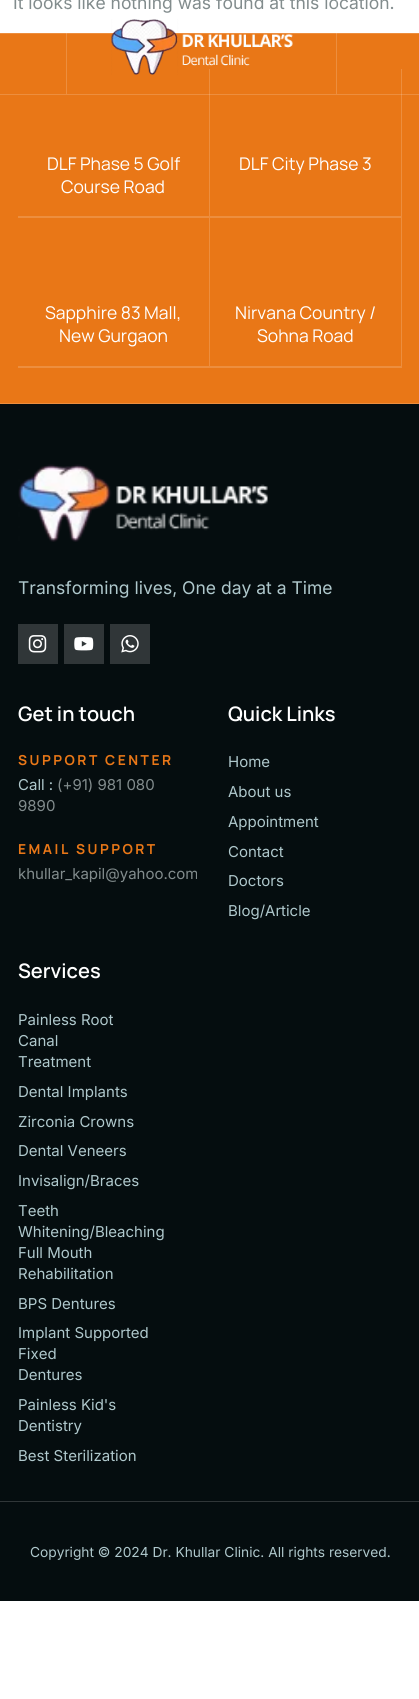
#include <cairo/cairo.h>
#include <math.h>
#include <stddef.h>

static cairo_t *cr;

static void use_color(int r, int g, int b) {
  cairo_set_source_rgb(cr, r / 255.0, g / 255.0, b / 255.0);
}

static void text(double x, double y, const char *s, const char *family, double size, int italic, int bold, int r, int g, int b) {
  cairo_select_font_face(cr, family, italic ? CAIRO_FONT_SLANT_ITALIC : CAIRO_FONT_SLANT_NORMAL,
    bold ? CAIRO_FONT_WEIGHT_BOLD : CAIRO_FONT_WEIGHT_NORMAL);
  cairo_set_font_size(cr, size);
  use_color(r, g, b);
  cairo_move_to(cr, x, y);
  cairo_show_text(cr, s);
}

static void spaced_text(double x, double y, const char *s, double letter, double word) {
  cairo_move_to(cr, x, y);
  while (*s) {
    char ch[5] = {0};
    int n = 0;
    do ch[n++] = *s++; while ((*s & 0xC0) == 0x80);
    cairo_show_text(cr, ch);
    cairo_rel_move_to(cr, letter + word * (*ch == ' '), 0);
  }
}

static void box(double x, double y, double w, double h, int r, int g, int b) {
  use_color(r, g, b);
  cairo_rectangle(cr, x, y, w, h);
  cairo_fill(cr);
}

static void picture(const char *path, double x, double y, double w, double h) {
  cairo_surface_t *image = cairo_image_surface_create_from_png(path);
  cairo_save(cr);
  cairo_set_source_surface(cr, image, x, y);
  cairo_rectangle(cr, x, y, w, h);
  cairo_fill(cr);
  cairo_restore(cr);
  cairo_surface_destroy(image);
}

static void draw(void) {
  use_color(255, 255, 255);
  cairo_paint(cr);
  box(0, 34, 419, 369, 233, 119, 23);
  use_color(237, 142, 62);
  cairo_new_path(cr);
  cairo_move_to(cr, 210, 69);
  cairo_line_to(cr, 210, 218);
  cairo_line_to(cr, 209, 216);
  cairo_line_to(cr, 209, 69);
  cairo_close_path(cr);
  cairo_fill(cr);
  cairo_new_path(cr);
  cairo_move_to(cr, 402, 69);
  cairo_line_to(cr, 402, 218);
  cairo_line_to(cr, 401, 216);
  cairo_line_to(cr, 401, 69);
  cairo_close_path(cr);
  cairo_fill(cr);
  cairo_set_source_rgba(cr, 1, 1, 1, 0.17);
  cairo_rectangle(cr, 0, 94, 419, 1);
  cairo_fill(cr);
  box(0, 33, 419, 1, 237, 142, 62);
  picture("img_01.png", 111, 19, 182, 56);
  box(0, 403, 419, 1, 237, 142, 62);
  cairo_set_source_rgba(cr, 1, 1, 1, 0.17);
  cairo_new_path(cr);
  cairo_move_to(cr, 210, 218);
  cairo_line_to(cr, 18, 218);
  cairo_line_to(cr, 18, 216);
  cairo_line_to(cr, 209, 216);
  cairo_close_path(cr);
  cairo_fill(cr);
  cairo_new_path(cr);
  cairo_move_to(cr, 402, 218);
  cairo_line_to(cr, 210, 218);
  cairo_line_to(cr, 210, 216);
  cairo_line_to(cr, 401, 216);
  cairo_close_path(cr);
  cairo_fill(cr);
  use_color(237, 142, 62);
  cairo_new_path(cr);
  cairo_move_to(cr, 210, 218);
  cairo_line_to(cr, 210, 368);
  cairo_line_to(cr, 209, 366);
  cairo_line_to(cr, 209, 218);
  cairo_close_path(cr);
  cairo_fill(cr);
  cairo_set_source_rgba(cr, 1, 1, 1, 0.17);
  cairo_new_path(cr);
  cairo_move_to(cr, 210, 368);
  cairo_line_to(cr, 18, 368);
  cairo_line_to(cr, 18, 366);
  cairo_line_to(cr, 209, 366);
  cairo_close_path(cr);
  cairo_fill(cr);
  use_color(237, 142, 62);
  cairo_new_path(cr);
  cairo_move_to(cr, 402, 218);
  cairo_line_to(cr, 402, 368);
  cairo_line_to(cr, 401, 366);
  cairo_line_to(cr, 401, 218);
  cairo_close_path(cr);
  cairo_fill(cr);
  cairo_set_source_rgba(cr, 1, 1, 1, 0.17);
  cairo_new_path(cr);
  cairo_move_to(cr, 402, 368);
  cairo_line_to(cr, 210, 368);
  cairo_line_to(cr, 210, 366);
  cairo_line_to(cr, 401, 366);
  cairo_close_path(cr);
  cairo_fill(cr);
  box(0, 404, 419, 1197, 5, 13, 15);
  box(0, 1501, 419, 1, 48, 54, 56);
  picture("img_02.png", 18, 464, 250, 78);
  box(18, 624, 40, 40, 48, 54, 56);
  picture("img_03.png", 28, 635, 19, 18);
  box(64, 624, 40, 40, 48, 54, 56);
  picture("img_04.png", 74, 637, 20, 14);
  box(110, 624, 40, 40, 48, 54, 56);
  picture("img_05.png", 121, 635, 18, 18);
  text(13, 9, "It looks like nothing was found at this location.", "Inter", 17.5, 0, 0, 130, 140, 141);
  cairo_set_source_rgba(cr, 1, 1, 1, 0.17);
  cairo_rectangle(cr, 336, 0, 1, 94);
  cairo_fill(cr);
  cairo_rectangle(cr, 66, 0, 1, 94);
  cairo_fill(cr);
  text(47, 170, "DLF Phase 5 Golf", "Manrope", 17.5, 0, 0, 255, 255, 255);
  text(61, 193, "Course Road", "Manrope", 17.5, 0, 0, 255, 255, 255);
  text(239, 170, "DLF City Phase 3", "Manrope", 17.5, 0, 0, 255, 255, 255);
  text(45, 319, "Sapphire 83 Mall,", "Manrope", 17.5, 0, 0, 255, 255, 255);
  text(59, 342, "New Gurgaon", "Manrope", 17.5, 0, 0, 255, 255, 255);
  text(235, 319, "Nirvana Country /", "Manrope", 17.5, 0, 0, 255, 255, 255);
  text(257, 342, "Sohna Road", "Manrope", 17.5, 0, 0, 255, 255, 255);
  text(18, 594, "Transforming lives, One day at a Time", "Inter", 17.5, 0, 0, 175, 200, 204);
  text(18, 721, "Get in touch", "Manrope SemiBold", 20, 0, 0, 255, 255, 255);
  cairo_select_font_face(cr, "Manrope", CAIRO_FONT_SLANT_NORMAL, CAIRO_FONT_WEIGHT_BOLD);
  cairo_set_font_size(cr, 13.75);
  use_color(233, 119, 23);
  spaced_text(18, 765, "SUPPORT CENTER", 2.5, 0);
  text(18, 790, "Call :", "Inter", 15, 0, 0, 175, 200, 204);
  text(57, 790, "(+91) 981 080", "Inter", 15, 0, 0, 130, 140, 141);
  text(18, 811, "9890", "Inter", 15, 0, 0, 130, 140, 141);
  cairo_select_font_face(cr, "Manrope", CAIRO_FONT_SLANT_NORMAL, CAIRO_FONT_WEIGHT_BOLD);
  cairo_set_font_size(cr, 13.75);
  use_color(233, 119, 23);
  spaced_text(18, 854, "EMAIL SUPPORT", 2.5, 0);
  text(18, 879, "khullar_kapil@yahoo.com", "Inter", 15, 0, 0, 130, 140, 141);
  text(228, 721, "Quick Links", "Manrope SemiBold", 20, 0, 0, 255, 255, 255);
  text(228, 767, "Home", "Inter", 15, 0, 0, 175, 200, 204);
  text(228, 797, "About us", "Inter", 15, 0, 0, 175, 200, 204);
  text(228, 827, "Appointment", "Inter", 15, 0, 0, 175, 200, 204);
  text(228, 857, "Contact", "Inter", 15, 0, 0, 175, 200, 204);
  text(228, 886, "Doctors", "Inter", 15, 0, 0, 175, 200, 204);
  text(228, 916, "Blog/Article", "Inter", 15, 0, 0, 175, 200, 204);
  text(18, 978, "Services", "Manrope SemiBold", 20, 0, 0, 255, 255, 255);
  text(18, 1025, "Painless Root", "Inter", 15, 0, 0, 175, 200, 204);
  text(18, 1046, "Canal", "Inter", 15, 0, 0, 175, 200, 204);
  text(18, 1067, "Treatment", "Inter", 15, 0, 0, 175, 200, 204);
  text(18, 1097, "Dental Implants", "Inter", 15, 0, 0, 175, 200, 204);
  text(18, 1127, "Zirconia Crowns", "Inter", 15, 0, 0, 175, 200, 204);
  text(18, 1156, "Dental Veneers", "Inter", 15, 0, 0, 175, 200, 204);
  text(18, 1186, "Invisalign/Braces", "Inter", 15, 0, 0, 175, 200, 204);
  text(18, 1216, "Teeth", "Inter", 15, 0, 0, 175, 200, 204);
  text(18, 1237, "Whitening/Bleaching", "Inter", 15, 0, 0, 175, 200, 204);
  text(18, 1258, "Full Mouth", "Inter", 15, 0, 0, 175, 200, 204);
  text(18, 1279, "Rehabilitation", "Inter", 15, 0, 0, 175, 200, 204);
  text(18, 1309, "BPS Dentures", "Inter", 15, 0, 0, 175, 200, 204);
  text(18, 1338, "Implant Supported", "Inter", 15, 0, 0, 175, 200, 204);
  text(18, 1359, "Fixed", "Inter", 15, 0, 0, 175, 200, 204);
  text(18, 1380, "Dentures", "Inter", 15, 0, 0, 175, 200, 204);
  text(18, 1410, "Painless Kid's", "Inter", 15, 0, 0, 175, 200, 204);
  text(18, 1431, "Dentistry", "Inter", 15, 0, 0, 175, 200, 204);
  text(18, 1461, "Best Sterilization", "Inter", 15, 0, 0, 175, 200, 204);
  text(30, 1557, "Copyright © 2024 Dr. Khullar Clinic. All rights reserved.", "Inter", 13.75, 0, 0, 175, 200, 204);
}

int main(void) {
  cairo_surface_t *surface = cairo_image_surface_create(CAIRO_FORMAT_RGB24, 419, 1699);
  cr = cairo_create(surface);
  cairo_font_options_t *options = cairo_font_options_create();
  cairo_font_options_set_hint_metrics(options, CAIRO_HINT_METRICS_OFF);
  cairo_font_options_set_hint_style(options, CAIRO_HINT_STYLE_NONE);
  cairo_set_font_options(cr, options);
  cairo_set_miter_limit(cr, 4);
  draw();
  cairo_surface_write_to_png(surface, "out.png");
  cairo_font_options_destroy(options);
  cairo_destroy(cr);
  cairo_surface_destroy(surface);
  return 0;
}
